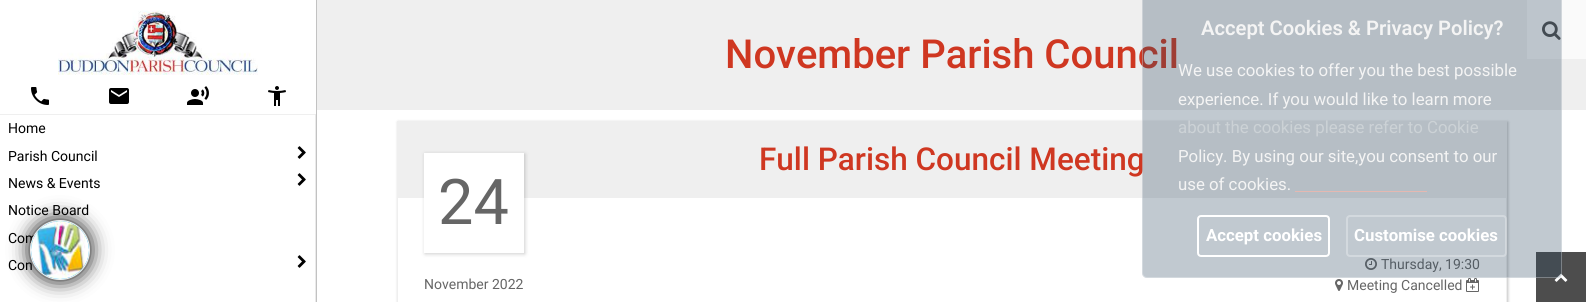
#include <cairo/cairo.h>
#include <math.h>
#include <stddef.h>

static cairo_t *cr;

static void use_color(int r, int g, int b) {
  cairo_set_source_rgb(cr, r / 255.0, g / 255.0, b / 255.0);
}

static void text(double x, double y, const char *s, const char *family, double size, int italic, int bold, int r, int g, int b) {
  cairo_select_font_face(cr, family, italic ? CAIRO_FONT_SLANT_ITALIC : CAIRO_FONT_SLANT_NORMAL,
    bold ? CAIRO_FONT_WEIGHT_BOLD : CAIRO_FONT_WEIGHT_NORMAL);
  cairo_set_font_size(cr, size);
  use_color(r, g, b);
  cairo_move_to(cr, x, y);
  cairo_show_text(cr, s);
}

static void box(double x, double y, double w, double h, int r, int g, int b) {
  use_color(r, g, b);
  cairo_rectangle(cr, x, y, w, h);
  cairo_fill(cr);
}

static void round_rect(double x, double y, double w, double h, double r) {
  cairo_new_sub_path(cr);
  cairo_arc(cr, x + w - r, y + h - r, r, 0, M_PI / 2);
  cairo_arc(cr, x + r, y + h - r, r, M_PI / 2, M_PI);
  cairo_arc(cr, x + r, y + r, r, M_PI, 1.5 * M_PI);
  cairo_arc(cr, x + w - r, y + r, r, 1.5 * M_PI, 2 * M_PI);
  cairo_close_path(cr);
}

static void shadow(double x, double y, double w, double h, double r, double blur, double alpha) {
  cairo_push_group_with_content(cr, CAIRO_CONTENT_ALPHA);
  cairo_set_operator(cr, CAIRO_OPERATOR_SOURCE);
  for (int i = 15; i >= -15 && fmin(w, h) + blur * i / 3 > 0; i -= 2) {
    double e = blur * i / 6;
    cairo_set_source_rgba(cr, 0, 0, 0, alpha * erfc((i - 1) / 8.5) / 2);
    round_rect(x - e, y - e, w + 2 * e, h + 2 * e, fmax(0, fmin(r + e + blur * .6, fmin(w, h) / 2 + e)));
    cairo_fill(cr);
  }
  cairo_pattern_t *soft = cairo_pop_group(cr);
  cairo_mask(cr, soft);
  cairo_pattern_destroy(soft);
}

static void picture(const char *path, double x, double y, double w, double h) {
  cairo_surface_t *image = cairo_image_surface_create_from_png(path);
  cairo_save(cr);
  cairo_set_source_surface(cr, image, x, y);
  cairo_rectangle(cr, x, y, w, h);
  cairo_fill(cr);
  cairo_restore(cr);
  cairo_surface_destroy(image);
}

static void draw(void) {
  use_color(255, 255, 255);
  cairo_paint(cr);
  box(317, 0, 1269, 110, 239, 239, 239);
  box(1527, 0, 59, 59, 250, 250, 250);
  picture("img_01.png", 1542, 21, 19, 19);
  box(316, 0, 1, 302, 194, 194, 194);
  picture("img_02.png", 58, 10, 200, 65);
  picture("img_03.png", 31, 87, 18, 18);
  picture("img_04.png", 109, 88, 20, 16);
  picture("img_05.png", 187, 86, 22, 19);
  picture("img_06.png", 268, 86, 18, 20);
  box(0, 114, 316, 1, 239, 239, 239);
  box(315, 114, 1, 188, 234, 234, 234);
  picture("img_07.png", 297, 146, 9, 13);
  picture("img_07.png", 297, 173, 9, 13);
  picture("img_07.png", 297, 255, 9, 13);
  cairo_save(cr);
  cairo_set_fill_rule(cr, CAIRO_FILL_RULE_EVEN_ODD);
  cairo_new_path(cr);
  cairo_move_to(cr, 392, 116);
  cairo_line_to(cr, 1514, 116);
  cairo_line_to(cr, 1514, 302);
  cairo_line_to(cr, 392, 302);
  cairo_close_path(cr);
  cairo_move_to(cr, 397, 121);
  cairo_line_to(cr, 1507, 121);
  cairo_line_to(cr, 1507, 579);
  cairo_line_to(cr, 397, 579);
  cairo_close_path(cr);
  cairo_clip(cr);
  use_color(0, 0, 0);
  shadow(398, 122, 1110, 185, 0, 1.5, 0.25);
  cairo_restore(cr);
  cairo_rectangle(cr, 397.5, 121.5, 1109, 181);
  use_color(239, 239, 239);
  cairo_set_line_width(cr, 1);
  cairo_stroke(cr);
  box(398, 122, 1108, 76, 239, 239, 239);
  use_color(0, 0, 0);
  shadow(425, 154, 100, 100, 0, 2, 0.2);
  box(424, 153, 100, 100, 255, 255, 255);
  picture("img_08.png", 1365, 258, 12, 12);
  picture("img_09.png", 1335, 279, 8, 12);
  picture("img_10.png", 1466, 278, 13, 14);
  box(1536, 252, 50, 50, 77, 77, 77);
  picture("img_11.png", 1554, 273, 14, 9);
  use_color(0, 0, 0);
  shadow(30, 220, 60, 60, 30, 10, 1);
  text(725, 68, "November Parish Council", "Roboto Medium", 40, 0, 0, 207, 55, 33);
  text(8, 133, "Home", "Roboto", 14, 0, 0, 0, 0, 0);
  text(8, 161, "Parish Council", "Roboto", 14, 0, 0, 0, 0, 0);
  text(8, 188, "News & Events", "Roboto", 14, 0, 0, 0, 0, 0);
  text(8, 215, "Notice Board", "Roboto", 14, 0, 0, 0, 0, 0);
  text(8, 243, "Com", "Roboto", 14, 0, 0, 0, 0, 0);
  text(8, 270, "Con", "Roboto", 14, 0, 0, 0, 0, 0);
  text(759, 170, "Full Parish Council Meeting", "Roboto Medium", 31.5, 0, 0, 207, 55, 33);
  text(438, 224, "24", "Roboto", 63, 0, 0, 102, 102, 102);
  text(424, 289, "November 2022", "Roboto", 14, 0, 0, 102, 102, 102);
  text(1381, 269, "Thursday, 19:30", "Roboto", 14, 0, 0, 102, 102, 102);
  cairo_set_source_rgba(cr, 0.184, 0.298, 0.384, 0.3);
  round_rect(1142, -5, 420, 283, 5);
  cairo_fill(cr);
  round_rect(1142.5, -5.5, 419, 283, 4.5);
  cairo_set_source_rgba(cr, 1, 1, 1, 0.3);
  cairo_stroke(cr);
  round_rect(1347, 216, 159, 40, 3);
  cairo_set_line_width(cr, 2);
  cairo_stroke(cr);
  text(1354, 241, "Customise cookies", "Roboto", 16.8, 0, 1, 255, 255, 255);
  round_rect(1198, 216, 131, 40, 3);
  cairo_stroke(cr);
  text(1206, 241, "Accept cookies", "Roboto", 16.8, 0, 1, 255, 255, 255);
  box(1295, 191, 132, 1, 229, 184, 177);
  text(1178, 190, "use of cookies.", "Roboto", 16.8, 0, 0, 244, 244, 244);
  text(1178, 162, "Policy. By using our site,you consent to our", "Roboto", 16.8, 0, 0, 244, 244, 244);
  text(1178, 133, "about the cookies please refer to Cookie", "Roboto", 16.8, 0, 0, 204, 210, 214);
  text(1178, 105, "experience. If you would like to learn more", "Roboto", 16.8, 0, 0, 244, 244, 244);
  text(1178, 76, "We use cookies to offer you the best possible", "Roboto", 16.8, 0, 0, 244, 244, 244);
  text(1201, 35, "Accept Cookies & Privacy Policy?", "Roboto SemiBold", 20.2, 0, 0, 244, 244, 244);
  text(1347, 290, "Meeting Cancelled", "Roboto", 14, 0, 0, 102, 102, 102);
  use_color(54, 176, 229);
  cairo_new_path(cr);
  cairo_arc(cr, 60, 250, 29.5, 0, 2 * M_PI);
  cairo_fill_preserve(cr);
  use_color(242, 242, 242);
  cairo_set_line_width(cr, 1);
  cairo_stroke(cr);
  picture("img_12.png", 31, 221, 58, 58);
}

int main(void) {
  cairo_surface_t *surface = cairo_image_surface_create(CAIRO_FORMAT_RGB24, 1586, 302);
  cr = cairo_create(surface);
  cairo_font_options_t *options = cairo_font_options_create();
  cairo_font_options_set_hint_metrics(options, CAIRO_HINT_METRICS_OFF);
  cairo_font_options_set_hint_style(options, CAIRO_HINT_STYLE_NONE);
  cairo_set_font_options(cr, options);
  cairo_set_miter_limit(cr, 4);
  draw();
  cairo_surface_write_to_png(surface, "out.png");
  cairo_font_options_destroy(options);
  cairo_destroy(cr);
  cairo_surface_destroy(surface);
  return 0;
}
